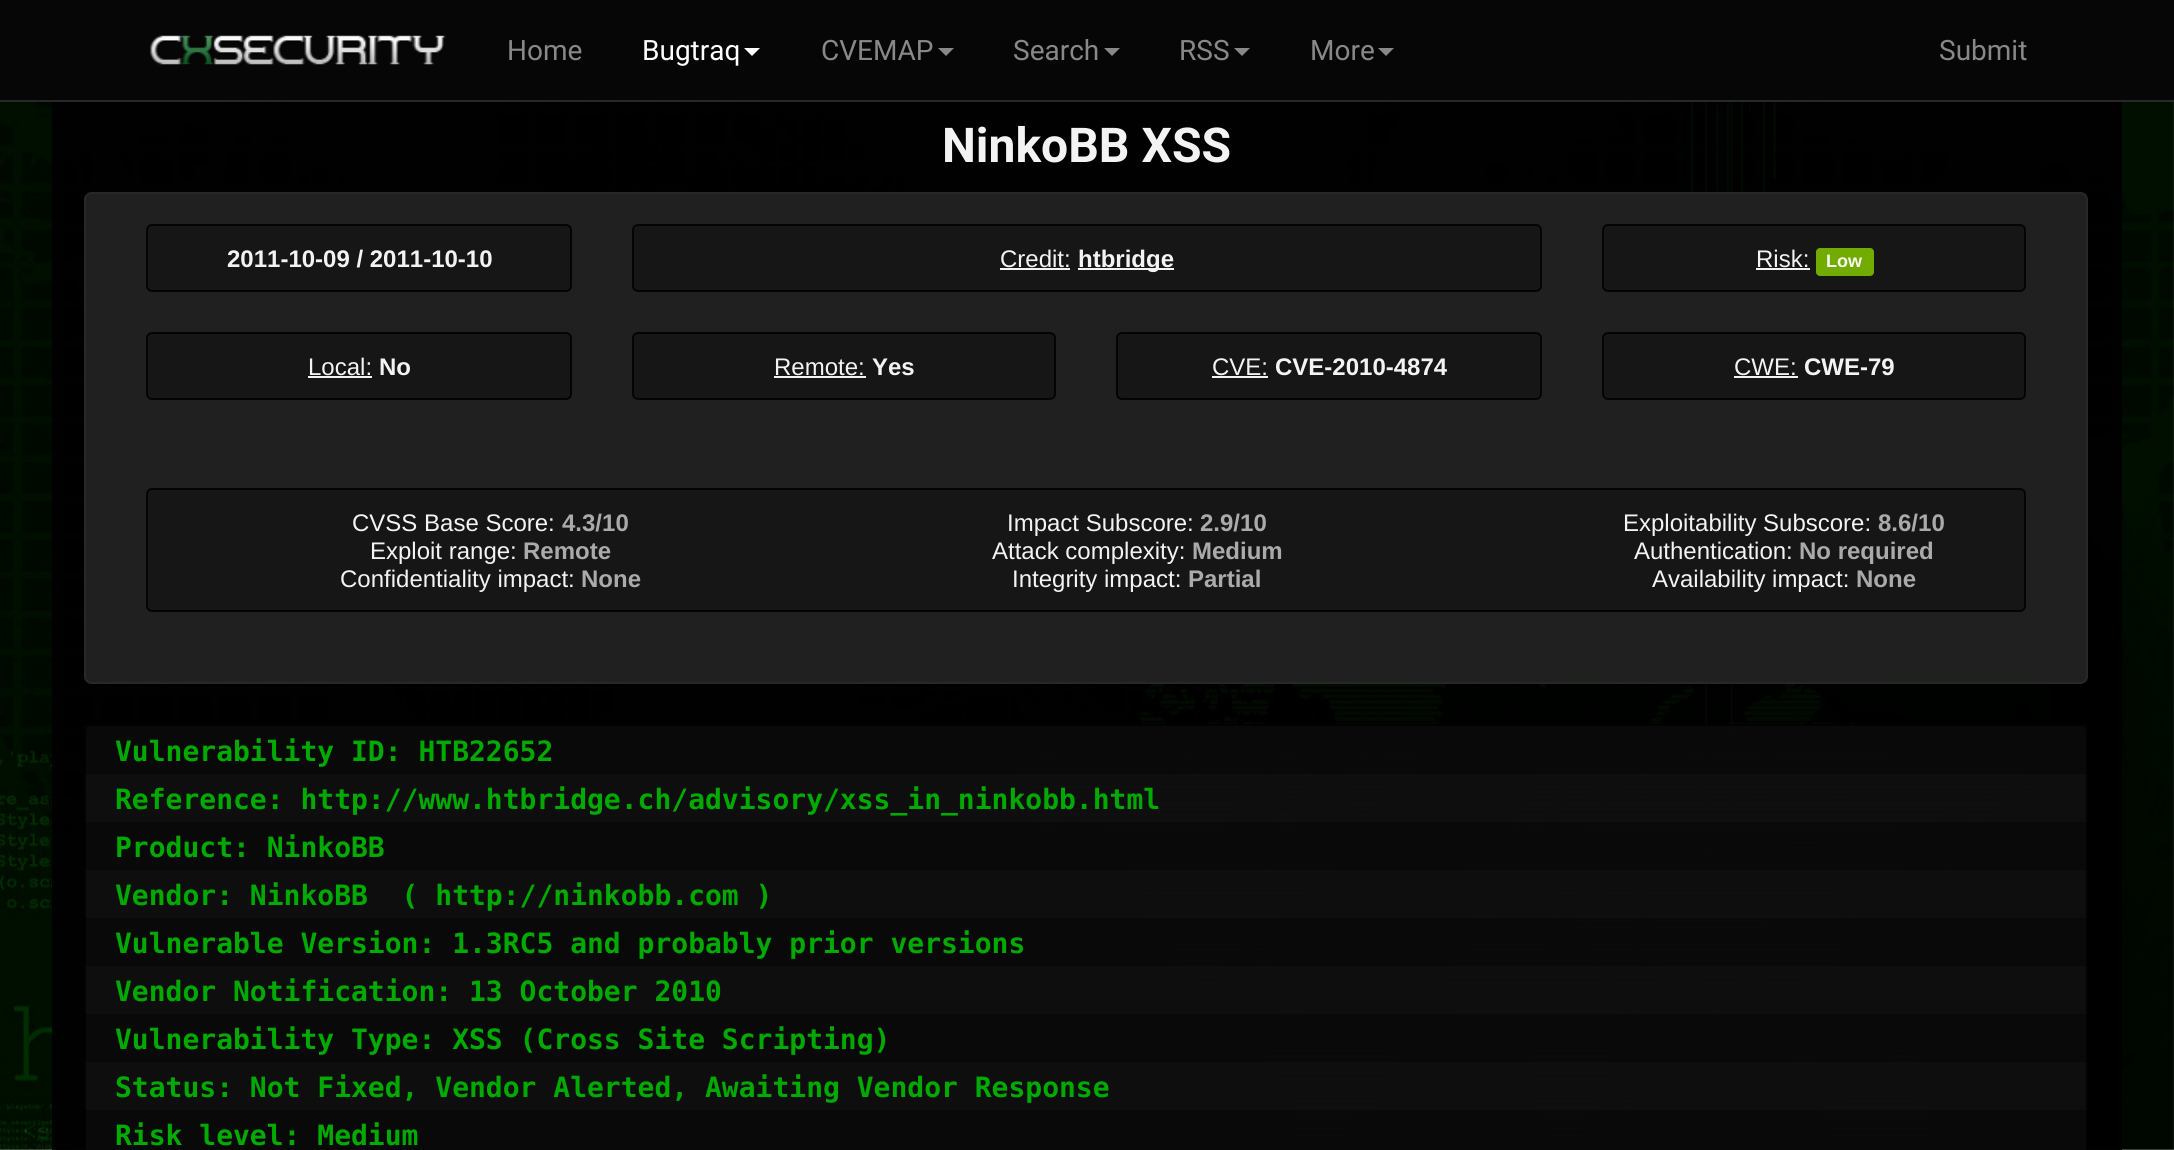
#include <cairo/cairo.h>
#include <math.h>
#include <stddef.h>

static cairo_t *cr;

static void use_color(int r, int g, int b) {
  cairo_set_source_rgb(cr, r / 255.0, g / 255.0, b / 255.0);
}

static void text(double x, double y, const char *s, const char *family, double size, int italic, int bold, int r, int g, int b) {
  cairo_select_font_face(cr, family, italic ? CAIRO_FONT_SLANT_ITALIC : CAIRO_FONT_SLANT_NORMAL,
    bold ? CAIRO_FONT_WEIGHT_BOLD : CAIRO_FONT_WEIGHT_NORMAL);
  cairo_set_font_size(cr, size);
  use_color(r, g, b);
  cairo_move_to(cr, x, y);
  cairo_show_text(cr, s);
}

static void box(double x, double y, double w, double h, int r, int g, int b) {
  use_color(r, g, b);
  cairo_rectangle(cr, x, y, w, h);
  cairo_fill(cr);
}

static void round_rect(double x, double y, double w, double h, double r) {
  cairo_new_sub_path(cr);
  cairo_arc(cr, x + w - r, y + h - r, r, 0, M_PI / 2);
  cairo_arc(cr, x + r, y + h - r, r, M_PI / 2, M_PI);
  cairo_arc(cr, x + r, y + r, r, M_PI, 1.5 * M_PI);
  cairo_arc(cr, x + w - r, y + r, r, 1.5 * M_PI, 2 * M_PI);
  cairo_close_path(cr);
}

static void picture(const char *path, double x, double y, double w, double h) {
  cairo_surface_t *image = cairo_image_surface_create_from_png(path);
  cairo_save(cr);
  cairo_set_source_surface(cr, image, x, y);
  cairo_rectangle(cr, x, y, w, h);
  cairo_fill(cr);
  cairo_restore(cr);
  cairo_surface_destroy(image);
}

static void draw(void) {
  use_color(255, 255, 255);
  cairo_paint(cr);
  picture("img_01.png", 0, 102, 2174, 1048);
  box(0, 0, 2174, 100, 6, 6, 6);
  box(0, 100, 2174, 2, 40, 40, 40);
  picture("img_02.png", 150, 35, 296, 30);
  use_color(255, 255, 255);
  cairo_new_path(cr);
  cairo_move_to(cr, 744, 48);
  cairo_line_to(cr, 760, 48);
  cairo_line_to(cr, 752, 56);
  cairo_close_path(cr);
  cairo_fill(cr);
  use_color(136, 136, 136);
  cairo_new_path(cr);
  cairo_move_to(cr, 938, 48);
  cairo_line_to(cr, 954, 48);
  cairo_line_to(cr, 946, 56);
  cairo_close_path(cr);
  cairo_fill(cr);
  cairo_new_path(cr);
  cairo_move_to(cr, 1104, 48);
  cairo_line_to(cr, 1120, 48);
  cairo_line_to(cr, 1112, 56);
  cairo_close_path(cr);
  cairo_fill(cr);
  cairo_new_path(cr);
  cairo_move_to(cr, 1234, 48);
  cairo_line_to(cr, 1250, 48);
  cairo_line_to(cr, 1242, 56);
  cairo_close_path(cr);
  cairo_fill(cr);
  cairo_new_path(cr);
  cairo_move_to(cr, 1378, 48);
  cairo_line_to(cr, 1394, 48);
  cairo_line_to(cr, 1386, 56);
  cairo_close_path(cr);
  cairo_fill(cr);
  cairo_set_source_rgba(cr, 0, 0, 0, 0.95);
  cairo_rectangle(cr, 52, 102, 32, 1048);
  cairo_fill(cr);
  cairo_rectangle(cr, 84, 102, 2004, 1048);
  cairo_fill(cr);
  cairo_set_source_rgba(cr, 0.133, 0.133, 0.133, 0.95);
  round_rect(84, 192, 2004, 492, 8);
  cairo_fill(cr);
  round_rect(85, 193, 2002, 490, 7);
  cairo_set_source_rgba(cr, 0.157, 0.157, 0.157, 0.95);
  cairo_stroke(cr);
  use_color(22, 22, 22);
  round_rect(147, 225, 424, 66, 5);
  cairo_fill_preserve(cr);
  use_color(4, 4, 4);
  cairo_stroke(cr);
  use_color(22, 22, 22);
  round_rect(633, 225, 908, 66, 5);
  cairo_fill_preserve(cr);
  use_color(4, 4, 4);
  cairo_stroke(cr);
  box(1000, 268, 70, 2, 243, 243, 243);
  box(1078, 268, 96, 2, 243, 243, 243);
  use_color(22, 22, 22);
  round_rect(1603, 225, 422, 66, 5);
  cairo_fill_preserve(cr);
  use_color(4, 4, 4);
  cairo_stroke(cr);
  box(1756, 268, 54, 2, 243, 243, 243);
  use_color(114, 171, 1);
  round_rect(1816, 248, 58, 28, 4);
  cairo_fill(cr);
  use_color(22, 22, 22);
  round_rect(147, 333, 424, 66, 5);
  cairo_fill_preserve(cr);
  use_color(4, 4, 4);
  cairo_stroke(cr);
  box(308, 376, 64, 2, 242, 243, 242);
  use_color(22, 22, 22);
  round_rect(633, 333, 422, 66, 5);
  cairo_fill_preserve(cr);
  use_color(4, 4, 4);
  cairo_stroke(cr);
  box(774, 376, 92, 2, 243, 243, 243);
  use_color(22, 22, 22);
  round_rect(1117, 333, 424, 66, 5);
  cairo_fill_preserve(cr);
  use_color(4, 4, 4);
  cairo_stroke(cr);
  box(1212, 376, 56, 2, 243, 243, 243);
  use_color(22, 22, 22);
  round_rect(1603, 333, 422, 66, 5);
  cairo_fill_preserve(cr);
  use_color(4, 4, 4);
  cairo_stroke(cr);
  box(1734, 376, 64, 2, 243, 243, 243);
  use_color(22, 22, 22);
  round_rect(147, 489, 1878, 122, 5);
  cairo_fill_preserve(cr);
  use_color(4, 4, 4);
  cairo_stroke(cr);
  picture("img_03.png", 84, 724, 2004, 426);
  round_rect(85, 725, 2002, 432, 5);
  cairo_set_source_rgba(cr, 0.012, 0.012, 0.012, 0.95);
  cairo_stroke(cr);
  cairo_set_source_rgba(cr, 0, 0, 0, 0.95);
  cairo_rectangle(cr, 2088, 102, 34, 1048);
  cairo_fill(cr);
  text(507, 60, "Home", "Roboto", 28, 0, 0, 136, 136, 136);
  text(642, 60, "Bugtraq", "Roboto", 28, 0, 0, 255, 255, 255);
  text(821, 60, "CVEMAP", "Roboto", 28, 0, 0, 136, 136, 136);
  text(1013, 60, "Search", "Roboto", 28, 0, 0, 136, 136, 136);
  text(1179, 60, "RSS", "Roboto", 28, 0, 0, 136, 136, 136);
  text(1310, 60, "More", "Roboto", 28, 0, 0, 136, 136, 136);
  text(1939, 60, "Submit", "Roboto", 28, 0, 0, 136, 136, 136);
  text(942, 162, "NinkoBB XSS", "Roboto", 48, 0, 1, 242, 243, 242);
  text(227, 267, "2011-10-09 / 2011-10-10", "Liberation Sans", 24, 0, 1, 242, 243, 242);
  text(1000, 267, "Credit:", "Liberation Sans", 24, 0, 0, 242, 243, 242);
  text(1078, 267, "htbridge", "Liberation Sans", 24, 0, 1, 242, 243, 242);
  text(1756, 267, "Risk:", "Liberation Sans", 24, 0, 0, 242, 243, 242);
  text(1826, 267, "Low", "Liberation Sans", 18, 0, 1, 248, 251, 242);
  text(308, 375, "Local:", "Liberation Sans", 24, 0, 0, 242, 243, 242);
  text(379, 375, "No", "Liberation Sans", 24, 0, 1, 242, 243, 242);
  text(774, 375, "Remote:", "Liberation Sans", 24, 0, 0, 242, 243, 242);
  text(872, 375, "Yes", "Liberation Sans", 24, 0, 1, 242, 243, 242);
  text(1212, 375, "CVE:", "Liberation Sans", 24, 0, 0, 242, 243, 242);
  text(1275, 375, "CVE-2010-4874", "Liberation Sans", 24, 0, 1, 242, 243, 242);
  text(1734, 375, "CWE:", "Liberation Sans", 24, 0, 0, 242, 243, 242);
  text(1804, 375, "CWE-79", "Liberation Sans", 24, 0, 1, 242, 243, 242);
  text(352, 531, "CVSS Base Score:", "Liberation Sans", 24, 0, 0, 242, 243, 242);
  text(562, 531, "4.3/10", "Liberation Sans", 24, 0, 1, 170, 170, 170);
  text(1007, 531, "Impact Subscore:", "Liberation Sans", 24, 0, 0, 242, 243, 242);
  text(1200, 531, "2.9/10", "Liberation Sans", 24, 0, 1, 170, 170, 170);
  text(1623, 531, "Exploitability Subscore:", "Liberation Sans", 24, 0, 0, 242, 243, 242);
  text(1878, 531, "8.6/10", "Liberation Sans", 24, 0, 1, 170, 170, 170);
  text(370, 559, "Exploit range:", "Liberation Sans", 24, 0, 0, 242, 243, 242);
  text(523, 559, "Remote", "Liberation Sans", 24, 0, 1, 170, 170, 170);
  text(992, 559, "Attack complexity:", "Liberation Sans", 24, 0, 0, 242, 243, 242);
  text(1192, 559, "Medium", "Liberation Sans", 24, 0, 1, 170, 170, 170);
  text(1634, 559, "Authentication:", "Liberation Sans", 24, 0, 0, 242, 243, 242);
  text(1799, 559, "No required", "Liberation Sans", 24, 0, 1, 170, 170, 170);
  text(340, 587, "Confidentiality impact:", "Liberation Sans", 24, 0, 0, 242, 243, 242);
  text(581, 587, "None", "Liberation Sans", 24, 0, 1, 170, 170, 170);
  text(1012, 587, "Integrity impact:", "Liberation Sans", 24, 0, 0, 242, 243, 242);
  text(1188, 587, "Partial", "Liberation Sans", 24, 0, 1, 170, 170, 170);
  text(1652, 587, "Availability impact:", "Liberation Sans", 24, 0, 0, 242, 243, 242);
  text(1856, 587, "None", "Liberation Sans", 24, 0, 1, 170, 170, 170);
  text(115, 761, "Vulnerability ID: HTB22652", "DejaVu Sans Mono", 28, 0, 1, 0, 170, 0);
  text(115, 809, "Reference: http://www.htbridge.ch/advisory/xss_in_ninkobb.html", "DejaVu Sans Mono", 28, 0, 1, 0, 170, 0);
  text(115, 857, "Product: NinkoBB", "DejaVu Sans Mono", 28, 0, 1, 0, 170, 0);
  text(115, 905, "Vendor: NinkoBB  ( http://ninkobb.com )", "DejaVu Sans Mono", 28, 0, 1, 0, 170, 0);
  text(115, 953, "Vulnerable Version: 1.3RC5 and probably prior versions", "DejaVu Sans Mono", 28, 0, 1, 0, 170, 0);
  text(115, 1001, "Vendor Notification: 13 October 2010", "DejaVu Sans Mono", 28, 0, 1, 0, 170, 0);
  text(115, 1049, "Vulnerability Type: XSS (Cross Site Scripting)", "DejaVu Sans Mono", 28, 0, 1, 0, 170, 0);
  text(115, 1097, "Status: Not Fixed, Vendor Alerted, Awaiting Vendor Response", "DejaVu Sans Mono", 28, 0, 1, 0, 170, 0);
  text(115, 1145, "Risk level: Medium", "DejaVu Sans Mono", 28, 0, 1, 0, 170, 0);
}

int main(void) {
  cairo_surface_t *surface = cairo_image_surface_create(CAIRO_FORMAT_RGB24, 2174, 1150);
  cr = cairo_create(surface);
  cairo_font_options_t *options = cairo_font_options_create();
  cairo_font_options_set_hint_metrics(options, CAIRO_HINT_METRICS_OFF);
  cairo_font_options_set_hint_style(options, CAIRO_HINT_STYLE_NONE);
  cairo_set_font_options(cr, options);
  cairo_set_miter_limit(cr, 4);
  draw();
  cairo_surface_write_to_png(surface, "out.png");
  cairo_font_options_destroy(options);
  cairo_destroy(cr);
  cairo_surface_destroy(surface);
  return 0;
}
